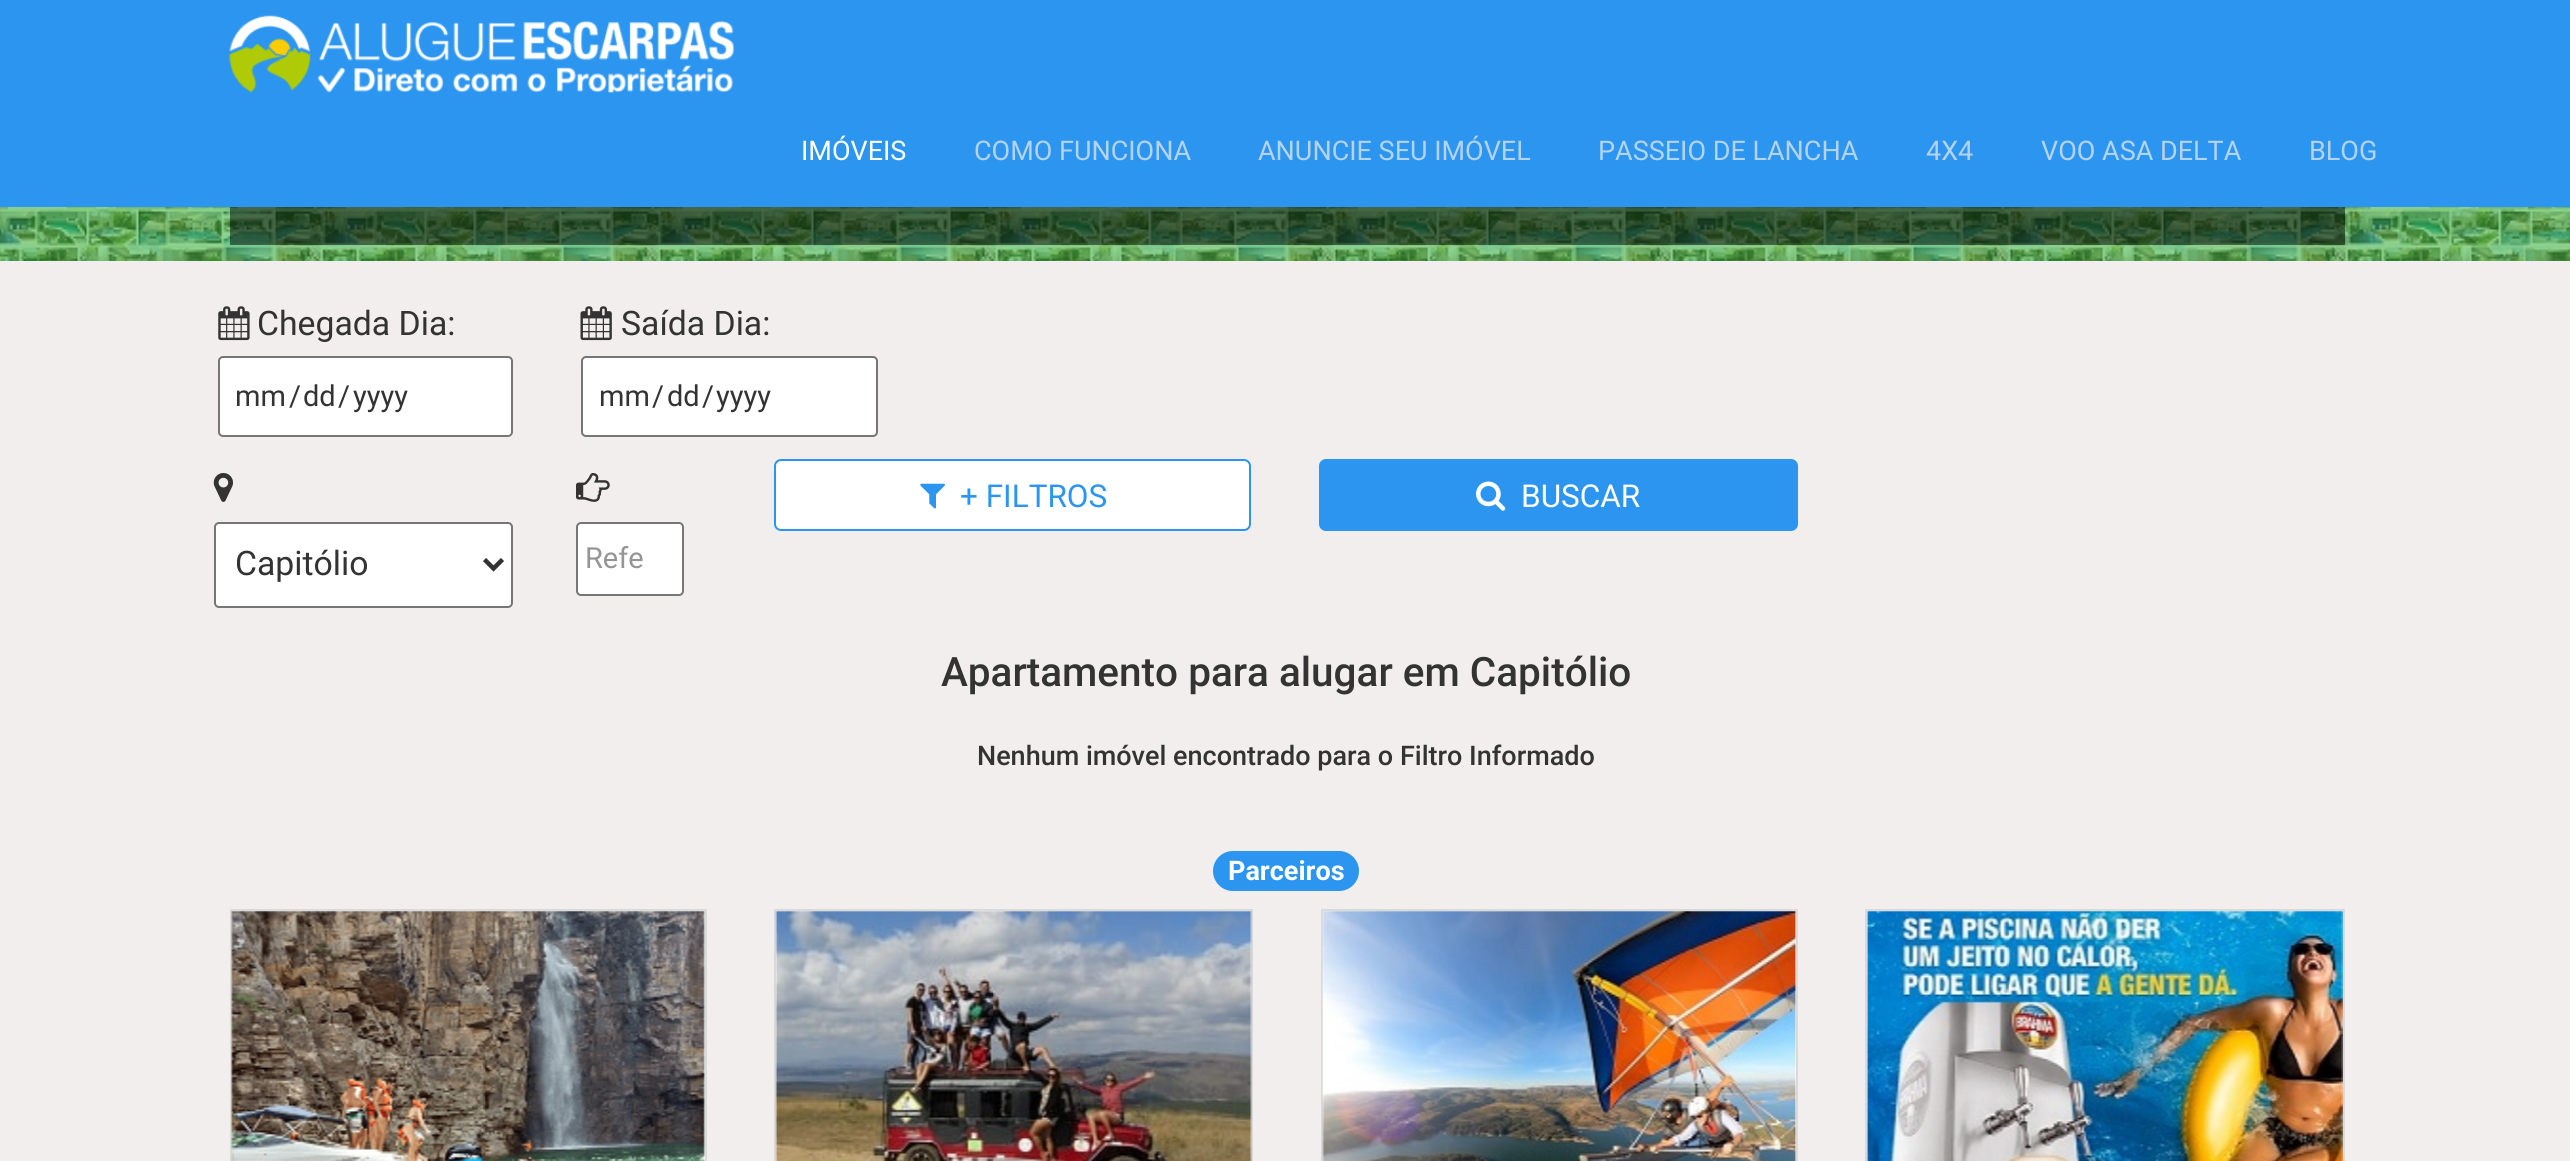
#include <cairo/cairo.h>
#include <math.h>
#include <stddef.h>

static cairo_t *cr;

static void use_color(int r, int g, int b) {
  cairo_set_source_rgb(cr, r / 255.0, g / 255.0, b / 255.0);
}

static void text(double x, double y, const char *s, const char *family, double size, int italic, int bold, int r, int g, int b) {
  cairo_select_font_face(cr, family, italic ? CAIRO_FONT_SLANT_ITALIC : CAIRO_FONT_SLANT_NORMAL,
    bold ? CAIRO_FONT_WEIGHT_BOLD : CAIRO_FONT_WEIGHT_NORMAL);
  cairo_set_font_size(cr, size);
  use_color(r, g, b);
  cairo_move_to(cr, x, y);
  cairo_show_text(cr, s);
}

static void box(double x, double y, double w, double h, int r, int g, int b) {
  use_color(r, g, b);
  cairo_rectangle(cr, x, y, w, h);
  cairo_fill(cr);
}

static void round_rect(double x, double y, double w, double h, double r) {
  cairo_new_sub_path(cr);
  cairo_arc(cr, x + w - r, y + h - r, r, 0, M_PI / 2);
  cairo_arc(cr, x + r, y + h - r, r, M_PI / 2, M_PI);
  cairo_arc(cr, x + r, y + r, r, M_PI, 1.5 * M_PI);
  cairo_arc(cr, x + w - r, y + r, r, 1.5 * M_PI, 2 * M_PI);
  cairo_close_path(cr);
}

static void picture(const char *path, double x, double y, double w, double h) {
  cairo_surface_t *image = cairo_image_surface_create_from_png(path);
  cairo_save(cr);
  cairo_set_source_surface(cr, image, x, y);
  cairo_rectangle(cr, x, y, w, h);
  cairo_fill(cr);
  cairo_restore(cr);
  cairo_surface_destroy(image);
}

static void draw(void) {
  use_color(241, 238, 237);
  cairo_paint(cr);
  box(0, 0, 2570, 207, 44, 149, 239);
  picture("img_01.png", 229, 15, 506, 78);
  picture("img_02.png", 0, 207, 2570, 54);
  cairo_set_source_rgba(cr, 0, 0, 0, 0.5);
  cairo_rectangle(cr, 230, 207, 2115, 38);
  cairo_fill(cr);
  picture("img_03.png", 218, 306, 32, 35);
  use_color(255, 255, 255);
  round_rect(219, 357, 293, 79, 4);
  cairo_fill_preserve(cr);
  use_color(118, 118, 118);
  cairo_stroke(cr);
  picture("img_04.png", 580, 306, 32, 35);
  use_color(255, 255, 255);
  round_rect(582, 357, 295, 79, 4);
  cairo_fill_preserve(cr);
  use_color(118, 118, 118);
  cairo_stroke(cr);
  use_color(255, 255, 255);
  round_rect(775, 460, 475, 70, 6);
  cairo_fill_preserve(cr);
  use_color(44, 149, 239);
  cairo_stroke(cr);
  picture("img_05.png", 920, 483, 25, 26);
  round_rect(1320, 460, 477, 70, 6);
  cairo_fill_preserve(cr);
  cairo_stroke(cr);
  picture("img_06.png", 1476, 481, 30, 30);
  picture("img_07.png", 213, 473, 20, 29);
  use_color(255, 255, 255);
  round_rect(215, 523, 297, 84, 4);
  cairo_fill_preserve(cr);
  use_color(118, 118, 118);
  cairo_stroke(cr);
  cairo_new_path(cr);
  cairo_move_to(cr, 484.5, 559.5);
  cairo_line_to(cr, 493.5, 568.5);
  cairo_line_to(cr, 502.5, 559.5);
  use_color(51, 51, 51);
  cairo_set_line_width(cr, 4.5);
  cairo_stroke(cr);
  picture("img_08.png", 576, 473, 34, 29);
  use_color(255, 255, 255);
  round_rect(577, 523, 106, 72, 4);
  cairo_fill_preserve(cr);
  use_color(118, 118, 118);
  cairo_set_line_width(cr, 2);
  cairo_stroke(cr);
  use_color(44, 149, 239);
  round_rect(1213, 851, 146, 40, 20);
  cairo_fill(cr);
  use_color(255, 255, 255);
  cairo_rectangle(cr, 231, 910, 475, 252);
  cairo_fill_preserve(cr);
  use_color(218, 218, 218);
  cairo_stroke(cr);
  picture("img_09.png", 231, 911, 474, 250);
  use_color(255, 255, 255);
  cairo_rectangle(cr, 775, 910, 477, 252);
  cairo_fill_preserve(cr);
  use_color(218, 218, 218);
  cairo_stroke(cr);
  picture("img_10.png", 775, 911, 477, 250);
  use_color(255, 255, 255);
  cairo_rectangle(cr, 1322, 910, 475, 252);
  cairo_fill_preserve(cr);
  use_color(218, 218, 218);
  cairo_stroke(cr);
  picture("img_11.png", 1322, 911, 474, 250);
  use_color(255, 255, 255);
  cairo_rectangle(cr, 1866, 910, 478, 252);
  cairo_fill_preserve(cr);
  use_color(218, 218, 218);
  cairo_stroke(cr);
  picture("img_12.png", 1867, 911, 476, 250);
  text(801, 160, "IMÓVEIS", "Roboto", 27, 0, 0, 255, 255, 255);
  text(974, 160, "COMO FUNCIONA", "Roboto", 27, 0, 0, 180, 211, 238);
  text(1258, 160, "ANUNCIE SEU IMÓVEL", "Roboto", 27, 0, 0, 180, 211, 238);
  text(1598, 160, "PASSEIO DE LANCHA", "Roboto", 27, 0, 0, 180, 211, 238);
  text(1926, 160, "4X4", "Roboto", 27, 0, 0, 180, 211, 238);
  text(2041, 160, "VOO ASA DELTA", "Roboto", 27, 0, 0, 180, 211, 238);
  text(2309, 160, "BLOG", "Roboto", 27, 0, 0, 180, 211, 238);
  text(257, 335, "Chegada Dia:", "Roboto", 33.75, 0, 0, 51, 51, 51);
  text(235, 406, "mm", "Roboto", 29, 0, 0, 51, 51, 51);
  text(289, 406, "/", "Roboto", 29, 0, 0, 51, 51, 51);
  text(303, 406, "dd", "Roboto", 29, 0, 0, 51, 51, 51);
  text(338, 406, "/", "Roboto", 29, 0, 0, 51, 51, 51);
  text(353, 406, "yyyy", "Roboto", 29, 0, 0, 51, 51, 51);
  text(621, 335, "Saída Dia:", "Roboto", 33.75, 0, 0, 51, 51, 51);
  text(599, 406, "mm", "Roboto", 29, 0, 0, 51, 51, 51);
  text(652, 406, "/", "Roboto", 29, 0, 0, 51, 51, 51);
  text(667, 406, "dd", "Roboto", 29, 0, 0, 51, 51, 51);
  text(702, 406, "/", "Roboto", 29, 0, 0, 51, 51, 51);
  text(716, 406, "yyyy", "Roboto", 29, 0, 0, 51, 51, 51);
  text(960, 507, "+ FILTROS", "Roboto", 31.5, 0, 0, 44, 149, 239);
  text(1521, 507, "BUSCAR", "Roboto", 31.5, 0, 0, 255, 255, 255);
  text(235, 575, "Capitólio", "Roboto", 33.75, 0, 0, 51, 51, 51);
  text(585, 568, "Refe", "Roboto", 29, 0, 0, 150, 149, 149);
  text(941, 686, "Apartamento para alugar em Capitólio", "Roboto Medium", 40.5, 0, 0, 51, 51, 51);
  text(977, 765, "Nenhum imóvel encontrado para o Filtro Informado", "Roboto Medium", 27, 0, 0, 51, 51, 51);
  text(1228, 880, "Parceiros", "Roboto", 27, 0, 1, 255, 255, 255);
}

int main(void) {
  cairo_surface_t *surface = cairo_image_surface_create(CAIRO_FORMAT_RGB24, 2570, 1161);
  cr = cairo_create(surface);
  cairo_font_options_t *options = cairo_font_options_create();
  cairo_font_options_set_hint_metrics(options, CAIRO_HINT_METRICS_OFF);
  cairo_font_options_set_hint_style(options, CAIRO_HINT_STYLE_NONE);
  cairo_set_font_options(cr, options);
  cairo_set_miter_limit(cr, 4);
  draw();
  cairo_surface_write_to_png(surface, "out.png");
  cairo_font_options_destroy(options);
  cairo_destroy(cr);
  cairo_surface_destroy(surface);
  return 0;
}
